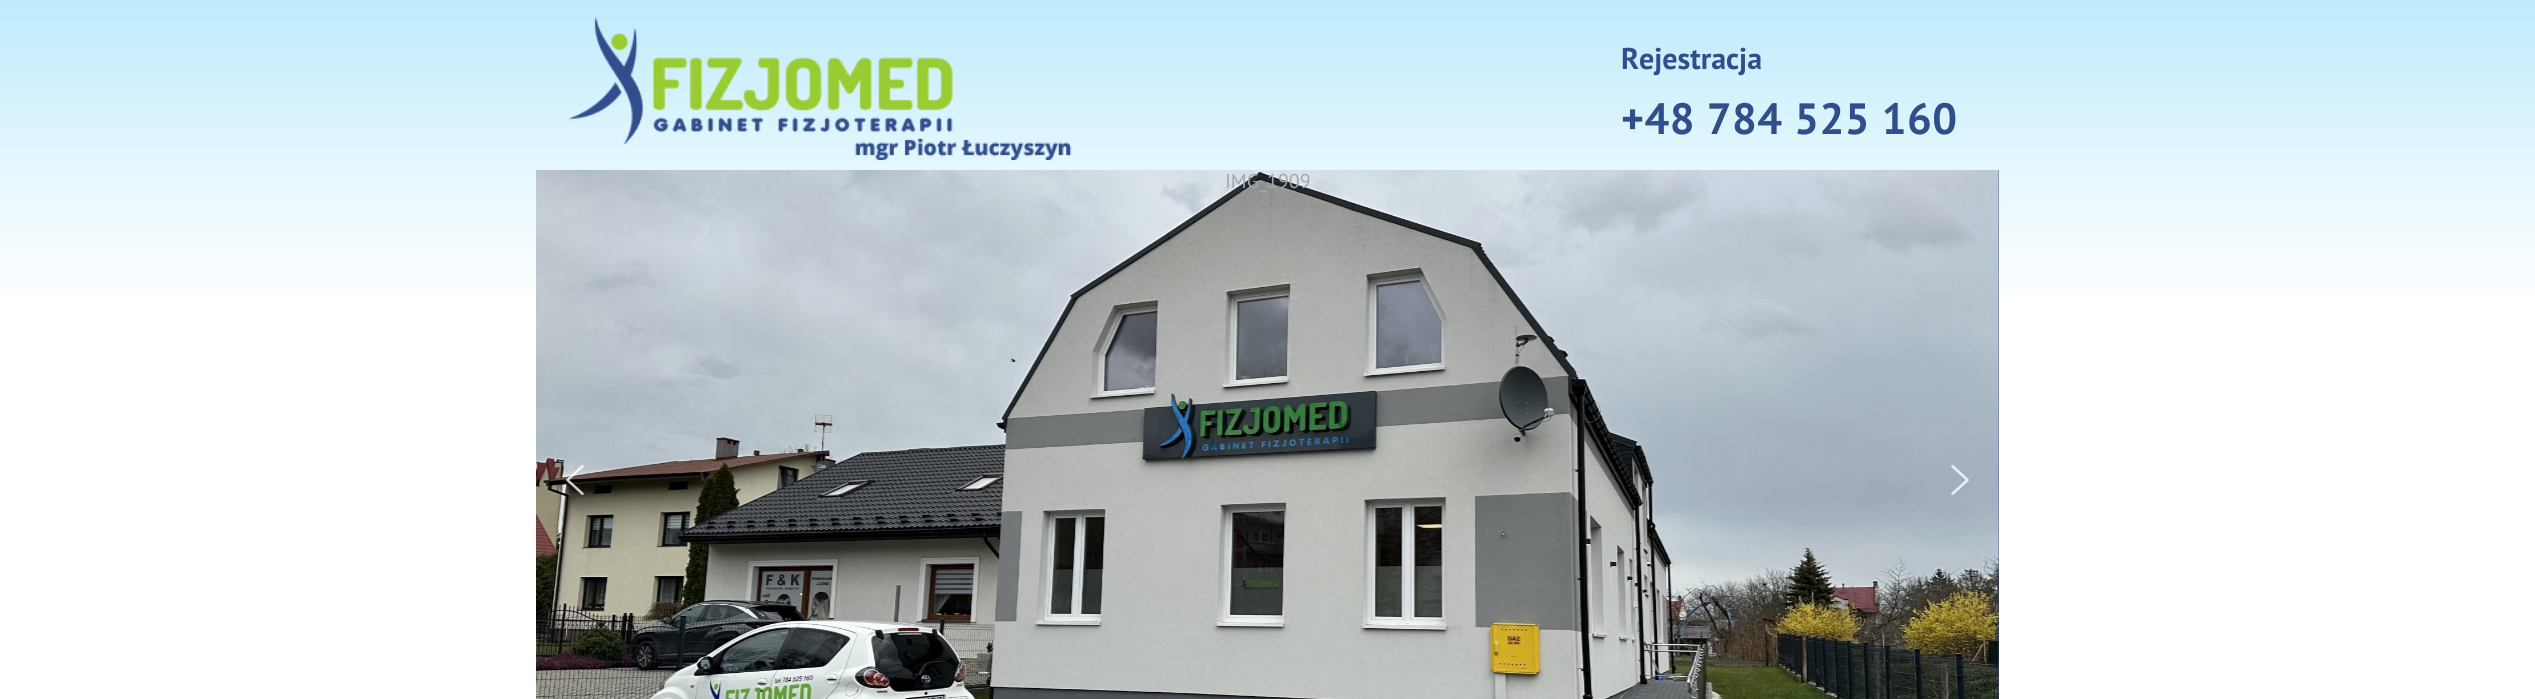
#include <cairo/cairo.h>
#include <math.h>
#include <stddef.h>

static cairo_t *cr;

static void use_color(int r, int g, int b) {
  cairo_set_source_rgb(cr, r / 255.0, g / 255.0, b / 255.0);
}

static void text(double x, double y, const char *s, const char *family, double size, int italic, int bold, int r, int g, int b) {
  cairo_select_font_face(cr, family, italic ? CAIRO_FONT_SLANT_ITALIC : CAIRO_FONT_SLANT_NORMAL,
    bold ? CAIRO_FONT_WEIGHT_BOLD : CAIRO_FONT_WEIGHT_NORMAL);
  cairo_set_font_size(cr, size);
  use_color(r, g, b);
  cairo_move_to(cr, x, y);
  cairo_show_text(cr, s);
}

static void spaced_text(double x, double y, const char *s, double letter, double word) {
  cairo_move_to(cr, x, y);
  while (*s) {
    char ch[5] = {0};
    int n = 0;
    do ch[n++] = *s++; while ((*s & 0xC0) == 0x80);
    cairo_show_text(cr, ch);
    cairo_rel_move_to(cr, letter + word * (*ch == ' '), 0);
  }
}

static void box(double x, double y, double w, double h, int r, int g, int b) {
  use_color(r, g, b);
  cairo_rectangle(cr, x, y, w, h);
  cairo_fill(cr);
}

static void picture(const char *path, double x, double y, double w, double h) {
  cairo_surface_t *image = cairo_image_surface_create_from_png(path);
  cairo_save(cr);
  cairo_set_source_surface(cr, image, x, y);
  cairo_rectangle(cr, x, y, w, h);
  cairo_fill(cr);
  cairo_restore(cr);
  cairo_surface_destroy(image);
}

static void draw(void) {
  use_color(255, 255, 255);
  cairo_paint(cr);
  picture("img_01.png", 0, 0, 2535, 292);
  picture("img_02.png", 569, 16, 503, 144);
  box(1998, 170, 1, 529, 56, 85, 147);
  picture("img_03.png", 536, 170, 1463, 529);
  picture("img_04.png", 566, 465, 18, 30);
  picture("img_05.png", 1951, 465, 18, 30);
  text(1621, 69, "Rejestracja", "PT Sans", 30, 0, 1, 49, 78, 140);
  cairo_set_font_size(cr, 43.75);
  spaced_text(1621, 134, "+48 784 525 160", 0.5, 0);
  text(1225, 188, "IMG_1909", "PT Sans", 20, 0, 0, 161, 168, 173);
}

int main(void) {
  cairo_surface_t *surface = cairo_image_surface_create(CAIRO_FORMAT_RGB24, 2535, 699);
  cr = cairo_create(surface);
  cairo_font_options_t *options = cairo_font_options_create();
  cairo_font_options_set_hint_metrics(options, CAIRO_HINT_METRICS_OFF);
  cairo_font_options_set_hint_style(options, CAIRO_HINT_STYLE_NONE);
  cairo_set_font_options(cr, options);
  cairo_set_miter_limit(cr, 4);
  draw();
  cairo_surface_write_to_png(surface, "out.png");
  cairo_font_options_destroy(options);
  cairo_destroy(cr);
  cairo_surface_destroy(surface);
  return 0;
}
